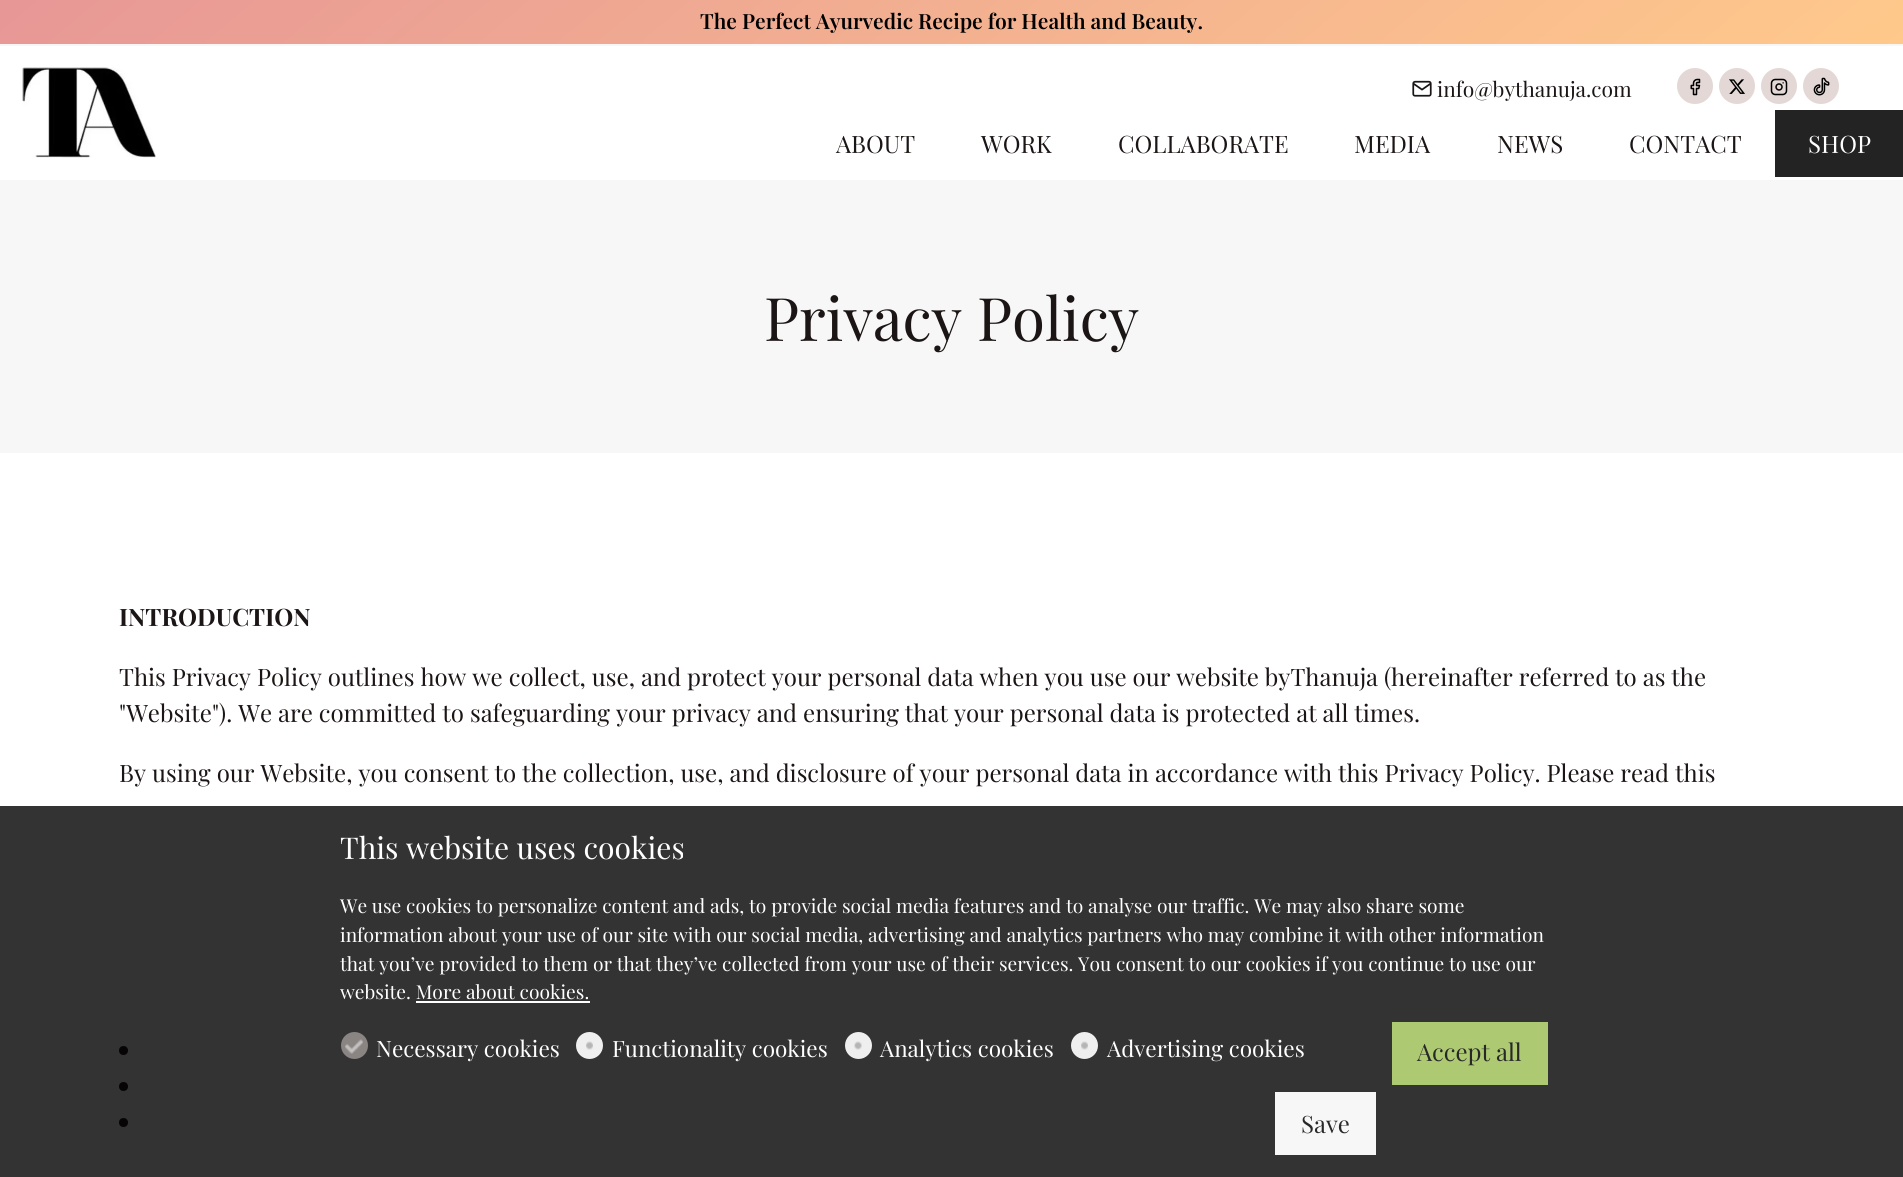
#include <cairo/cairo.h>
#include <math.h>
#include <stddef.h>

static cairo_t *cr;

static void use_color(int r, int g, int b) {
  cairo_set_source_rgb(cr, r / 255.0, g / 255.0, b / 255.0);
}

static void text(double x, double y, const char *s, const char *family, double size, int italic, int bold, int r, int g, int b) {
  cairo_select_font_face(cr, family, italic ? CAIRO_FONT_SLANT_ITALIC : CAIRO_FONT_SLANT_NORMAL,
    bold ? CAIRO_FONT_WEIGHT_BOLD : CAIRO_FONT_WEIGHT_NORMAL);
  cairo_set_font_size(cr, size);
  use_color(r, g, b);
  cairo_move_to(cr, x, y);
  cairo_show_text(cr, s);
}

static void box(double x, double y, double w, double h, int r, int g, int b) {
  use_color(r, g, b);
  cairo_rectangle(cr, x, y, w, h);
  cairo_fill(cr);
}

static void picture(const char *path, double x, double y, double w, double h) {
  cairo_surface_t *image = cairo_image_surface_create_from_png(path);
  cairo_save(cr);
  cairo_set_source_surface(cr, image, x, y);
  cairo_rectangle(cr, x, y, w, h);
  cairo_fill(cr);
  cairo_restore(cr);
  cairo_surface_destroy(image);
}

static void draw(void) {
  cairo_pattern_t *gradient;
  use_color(255, 255, 255);
  cairo_paint(cr);
  gradient = cairo_pattern_create_linear(548, -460, 1356, 503);
  cairo_pattern_add_color_stop_rgba(gradient, 0, 0.906, 0.592, 0.588, 1);
  cairo_pattern_add_color_stop_rgba(gradient, 1, 1, 0.788, 0.545, 1);
  cairo_set_source(cr, gradient);
  cairo_pattern_destroy(gradient);
  cairo_rectangle(cr, 0, 0, 1903, 44);
  cairo_fill(cr);
  box(0, 44, 1903, 2, 247, 247, 247);
  picture("img_01.png", 22, 67, 134, 91);
  picture("img_02.png", 1412, 80, 20, 17);
  use_color(227, 216, 213);
  cairo_arc(cr, 1695, 86, 18, 0, 2 * M_PI);
  cairo_fill(cr);
  picture("img_03.png", 1690, 78, 11, 18);
  cairo_arc(cr, 1737, 86, 18, 0, 2 * M_PI);
  cairo_fill(cr);
  picture("img_04.png", 1729, 79, 16, 15);
  cairo_arc(cr, 1779, 86, 18, 0, 2 * M_PI);
  cairo_fill(cr);
  picture("img_05.png", 1770, 78, 18, 18);
  cairo_arc(cr, 1821, 86, 18, 0, 2 * M_PI);
  cairo_fill(cr);
  picture("img_06.png", 1813, 77, 17, 19);
  box(1775, 110, 128, 67, 36, 35, 35);
  box(0, 180, 1903, 273, 247, 247, 247);
  use_color(28, 21, 21);
  cairo_arc(cr, 123.5, 1050.5, 4.5, 0, 2 * M_PI);
  cairo_fill(cr);
  cairo_arc(cr, 123.5, 1086.5, 4.5, 0, 2 * M_PI);
  cairo_fill(cr);
  cairo_arc(cr, 123.5, 1122.5, 4.5, 0, 2 * M_PI);
  cairo_fill(cr);
  cairo_set_source_rgba(cr, 0, 0, 0, 0.8);
  cairo_rectangle(cr, 0, 806, 1903, 371);
  cairo_fill(cr);
  box(416, 1001, 174, 2, 255, 255, 255);
  cairo_set_source_rgba(cr, 0.89, 0.847, 0.835, 0.5);
  cairo_arc(cr, 354.5, 1045.5, 13.5, 0, 2 * M_PI);
  cairo_fill(cr);
  picture("img_07.png", 345, 1039, 18, 15);
  use_color(239, 239, 239);
  cairo_arc(cr, 589.5, 1045.5, 13.5, 0, 2 * M_PI);
  cairo_fill(cr);
  picture("img_08.png", 586, 1041, 7, 9);
  cairo_arc(cr, 858.5, 1045.5, 13.5, 0, 2 * M_PI);
  cairo_fill(cr);
  picture("img_09.png", 854, 1041, 8, 9);
  cairo_arc(cr, 1084.5, 1045.5, 13.5, 0, 2 * M_PI);
  cairo_fill(cr);
  picture("img_08.png", 1081, 1041, 7, 9);
  box(1392, 1022, 156, 63, 173, 201, 114);
  box(1275, 1092, 101, 63, 247, 247, 247);
  text(700, 29, "The Perfect Ayurvedic Recipe for Health and Beauty.", "Playfair Display SemiBold", 21, 0, 0, 0, 0, 0);
  text(1437, 97, "info@bythanuja.com", "Playfair Display", 21, 0, 0, 28, 21, 21);
  text(836, 153, "ABOUT", "Playfair Display", 24, 0, 0, 28, 21, 21);
  text(981, 153, "WORK", "Playfair Display", 24, 0, 0, 28, 21, 21);
  text(1118, 153, "COLLABORATE", "Playfair Display", 24, 0, 0, 28, 21, 21);
  text(1354, 153, "MEDIA", "Playfair Display", 24, 0, 0, 28, 21, 21);
  text(1497, 153, "NEWS", "Playfair Display", 24, 0, 0, 28, 21, 21);
  text(1629, 153, "CONTACT", "Playfair Display", 24, 0, 0, 28, 21, 21);
  text(1808, 153, "SHOP", "Playfair Display", 24, 0, 0, 255, 255, 255);
  text(764, 341, "Privacy Policy", "Playfair Display", 60, 0, 0, 28, 21, 21);
  text(119, 626, "INTRODUCTION", "Playfair Display", 24, 0, 1, 28, 21, 21);
  text(119, 686, "This Privacy Policy outlines how we collect, use, and protect your personal data when you use our website byThanuja (hereinafter referred to as the", "Playfair Display", 24, 0, 0, 28, 21, 21);
  text(119, 722, "\"Website\"). We are committed to safeguarding your privacy and ensuring that your personal data is protected at all times.", "Playfair Display", 24, 0, 0, 28, 21, 21);
  text(119, 782, "By using our Website, you consent to the collection, use, and disclosure of your personal data in accordance with this Privacy Policy. Please read this", "Playfair Display", 24, 0, 0, 28, 21, 21);
  text(340, 859, "This website uses cookies", "Playfair Display", 30, 0, 0, 255, 255, 255);
  text(340, 913, "We use cookies to personalize content and ads, to provide social media features and to analyse our traffic. We may also share some", "Playfair Display", 19.2, 0, 0, 255, 255, 255);
  text(340, 942, "information about your use of our site with our social media, advertising and analytics partners who may combine it with other information", "Playfair Display", 19.2, 0, 0, 255, 255, 255);
  text(340, 971, "that you’ve provided to them or that they’ve collected from your use of their services. You consent to our cookies if you continue to use our", "Playfair Display", 19.2, 0, 0, 255, 255, 255);
  text(340, 999, "website. More about cookies.", "Playfair Display", 19.2, 0, 0, 255, 255, 255);
  text(376, 1057, "Necessary cookies", "Playfair Display", 22.5, 0, 0, 255, 255, 255);
  text(612, 1057, "Functionality cookies", "Playfair Display", 22.5, 0, 0, 255, 255, 255);
  text(880, 1057, "Analytics cookies", "Playfair Display", 22.5, 0, 0, 255, 255, 255);
  text(1107, 1057, "Advertising cookies", "Playfair Display", 22.5, 0, 0, 255, 255, 255);
  text(1417, 1061, "Accept all", "Playfair Display", 24, 0, 0, 40, 40, 40);
  text(1301, 1133, "Save", "Playfair Display", 24, 0, 0, 40, 40, 40);
}

int main(void) {
  cairo_surface_t *surface = cairo_image_surface_create(CAIRO_FORMAT_RGB24, 1903, 1177);
  cr = cairo_create(surface);
  cairo_font_options_t *options = cairo_font_options_create();
  cairo_font_options_set_hint_metrics(options, CAIRO_HINT_METRICS_OFF);
  cairo_font_options_set_hint_style(options, CAIRO_HINT_STYLE_NONE);
  cairo_set_font_options(cr, options);
  cairo_set_miter_limit(cr, 4);
  draw();
  cairo_surface_write_to_png(surface, "out.png");
  cairo_font_options_destroy(options);
  cairo_destroy(cr);
  cairo_surface_destroy(surface);
  return 0;
}
